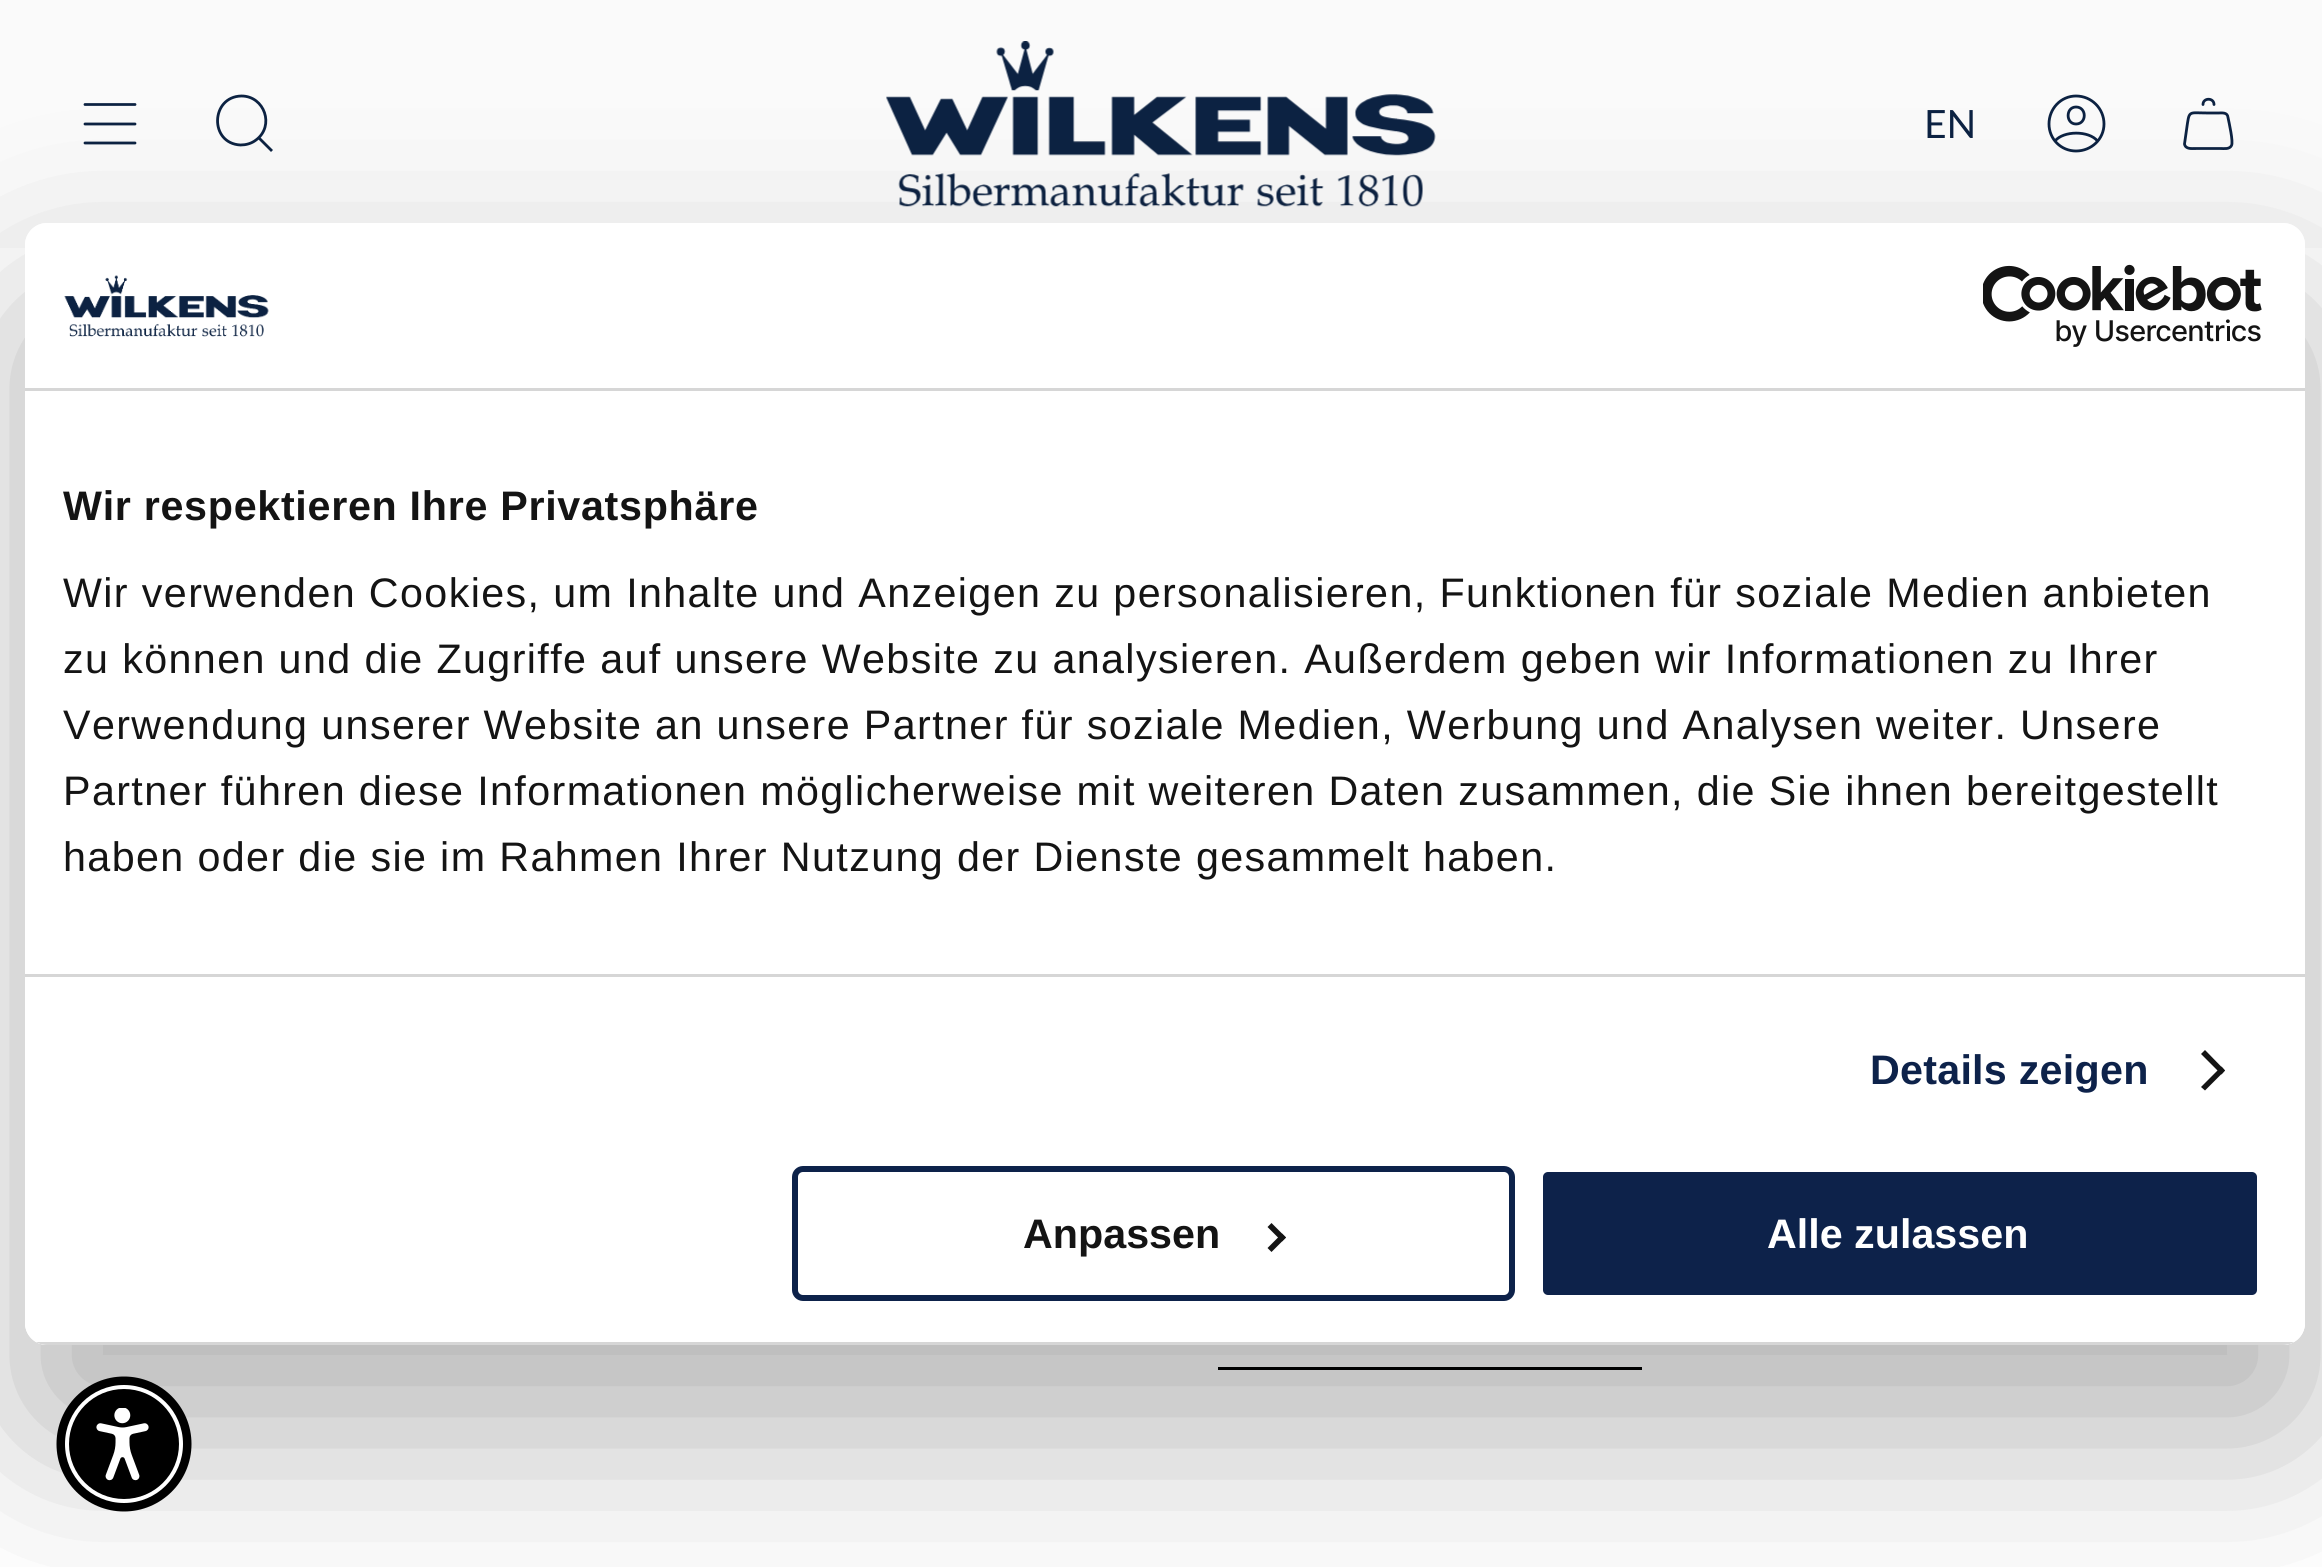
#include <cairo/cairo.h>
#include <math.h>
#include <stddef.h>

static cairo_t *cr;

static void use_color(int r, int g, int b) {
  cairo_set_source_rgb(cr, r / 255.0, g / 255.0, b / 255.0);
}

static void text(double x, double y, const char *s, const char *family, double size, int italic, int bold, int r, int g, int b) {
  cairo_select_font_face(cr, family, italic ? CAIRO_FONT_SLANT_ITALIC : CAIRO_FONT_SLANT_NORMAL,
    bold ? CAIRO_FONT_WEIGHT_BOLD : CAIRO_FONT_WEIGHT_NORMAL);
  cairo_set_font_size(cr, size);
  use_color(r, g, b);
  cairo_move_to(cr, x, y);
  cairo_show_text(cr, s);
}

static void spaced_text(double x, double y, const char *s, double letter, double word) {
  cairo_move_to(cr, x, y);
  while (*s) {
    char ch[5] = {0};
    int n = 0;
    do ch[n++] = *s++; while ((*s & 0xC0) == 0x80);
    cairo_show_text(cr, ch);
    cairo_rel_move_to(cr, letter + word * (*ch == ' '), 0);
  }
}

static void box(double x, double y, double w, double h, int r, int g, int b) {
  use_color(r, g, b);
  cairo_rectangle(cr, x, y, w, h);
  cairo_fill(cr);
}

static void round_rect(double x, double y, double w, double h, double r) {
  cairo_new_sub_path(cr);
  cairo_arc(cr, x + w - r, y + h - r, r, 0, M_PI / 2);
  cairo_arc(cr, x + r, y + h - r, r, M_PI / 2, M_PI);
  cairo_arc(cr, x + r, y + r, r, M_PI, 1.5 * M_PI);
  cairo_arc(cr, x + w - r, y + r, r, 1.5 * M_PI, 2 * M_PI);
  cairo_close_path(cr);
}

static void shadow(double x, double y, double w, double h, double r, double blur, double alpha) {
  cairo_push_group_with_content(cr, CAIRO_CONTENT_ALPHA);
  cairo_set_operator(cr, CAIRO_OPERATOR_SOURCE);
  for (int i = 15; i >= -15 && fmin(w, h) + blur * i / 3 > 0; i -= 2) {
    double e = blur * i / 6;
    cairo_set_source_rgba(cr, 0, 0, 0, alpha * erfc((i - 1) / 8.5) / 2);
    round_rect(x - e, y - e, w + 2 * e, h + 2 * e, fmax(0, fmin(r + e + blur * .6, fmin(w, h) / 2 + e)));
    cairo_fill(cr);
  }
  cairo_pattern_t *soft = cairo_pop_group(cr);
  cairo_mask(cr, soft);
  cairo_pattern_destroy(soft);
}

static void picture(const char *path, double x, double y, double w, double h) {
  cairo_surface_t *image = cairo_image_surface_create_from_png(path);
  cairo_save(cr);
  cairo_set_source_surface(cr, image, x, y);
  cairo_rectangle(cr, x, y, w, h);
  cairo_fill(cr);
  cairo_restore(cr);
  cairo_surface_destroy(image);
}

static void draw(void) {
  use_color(255, 255, 255);
  cairo_paint(cr);
  box(0, 0, 2322, 248, 250, 250, 250);
  cairo_new_path(cr);
  cairo_move_to(cr, 85, 104.5);
  cairo_line_to(cr, 135, 104.5);
  cairo_move_to(cr, 85, 124);
  cairo_line_to(cr, 135, 124);
  cairo_move_to(cr, 85, 143);
  cairo_line_to(cr, 135, 143);
  use_color(12, 34, 66);
  cairo_set_line_width(cr, 2.8);
  cairo_set_line_cap(cr, CAIRO_LINE_CAP_ROUND);
  cairo_set_line_join(cr, CAIRO_LINE_JOIN_ROUND);
  cairo_stroke(cr);
  cairo_new_path(cr);
  cairo_move_to(cr, 241.5, 96);
  cairo_curve_to(cr, 264.5, 96, 275, 126, 256, 140);
  cairo_curve_to(cr, 251.5, 143.5, 246, 145, 240.5, 145);
  cairo_curve_to(cr, 209, 143.5, 210.5, 96.5, 241.5, 96);
  cairo_close_path(cr);
  cairo_move_to(cr, 259, 138);
  cairo_line_to(cr, 272, 151);
  cairo_set_line_cap(cr, CAIRO_LINE_CAP_BUTT);
  cairo_set_line_join(cr, CAIRO_LINE_JOIN_MITER);
  cairo_stroke(cr);
  picture("img_01.png", 886, 41, 550, 166);
  cairo_new_path(cr);
  cairo_move_to(cr, 2076, 96);
  cairo_curve_to(cr, 2061, 96, 2049, 108.5, 2049, 124);
  cairo_curve_to(cr, 2049, 139, 2061, 151, 2076, 151);
  cairo_curve_to(cr, 2091.5, 151, 2104, 139, 2104, 124);
  cairo_curve_to(cr, 2104, 108.5, 2091.5, 96, 2076, 96);
  cairo_close_path(cr);
  cairo_move_to(cr, 2055, 141);
  cairo_curve_to(cr, 2063.5, 130.5, 2089, 130.5, 2097.5, 141);
  cairo_move_to(cr, 2076, 124);
  cairo_curve_to(cr, 2087, 124, 2087, 107, 2076, 107);
  cairo_curve_to(cr, 2065.5, 107, 2065.5, 124, 2076, 124);
  cairo_close_path(cr);
  cairo_set_line_cap(cr, CAIRO_LINE_CAP_ROUND);
  cairo_set_line_join(cr, CAIRO_LINE_JOIN_ROUND);
  cairo_stroke(cr);
  cairo_new_path(cr);
  cairo_move_to(cr, 2228, 117.5);
  cairo_curve_to(cr, 2229, 122.5, 2233.5, 142, 2231.5, 145.5);
  cairo_curve_to(cr, 2229.5, 149.5, 2224, 148.5, 2220.5, 148.5);
  cairo_line_to(cr, 2196, 148.5);
  cairo_curve_to(cr, 2192, 148.5, 2185.5, 149.5, 2184.5, 144);
  cairo_line_to(cr, 2186.5, 130);
  cairo_curve_to(cr, 2189.5, 109.5, 2187.5, 113, 2208, 113);
  cairo_line_to(cr, 2218, 113);
  cairo_curve_to(cr, 2222, 113, 2227.5, 112, 2228, 117.5);
  cairo_close_path(cr);
  cairo_move_to(cr, 2214, 104.5);
  cairo_curve_to(cr, 2214, 97.5, 2203, 97.5, 2203, 104.5);
  cairo_stroke(cr);
  box(1218, 1367, 424, 3, 0, 1, 1);
  cairo_save(cr);
  cairo_set_fill_rule(cr, CAIRO_FILL_RULE_EVEN_ODD);
  cairo_new_path(cr);
  cairo_move_to(cr, 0, 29);
  cairo_line_to(cr, 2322, 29);
  cairo_line_to(cr, 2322, 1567);
  cairo_line_to(cr, 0, 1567);
  cairo_close_path(cr);
  cairo_move_to(cr, 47, 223);
  cairo_line_to(cr, 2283, 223);
  cairo_curve_to(cr, 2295, 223, 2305, 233, 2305, 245);
  cairo_line_to(cr, 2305, 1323);
  cairo_curve_to(cr, 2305, 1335, 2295, 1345, 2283, 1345);
  cairo_line_to(cr, 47, 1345);
  cairo_curve_to(cr, 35, 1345, 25, 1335, 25, 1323);
  cairo_line_to(cr, 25, 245);
  cairo_curve_to(cr, 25, 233, 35, 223, 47, 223);
  cairo_close_path(cr);
  cairo_clip(cr);
  use_color(0, 0, 0);
  shadow(25, 311, 2280, 1122, 22, 93.5, 0.3);
  cairo_restore(cr);
  use_color(255, 255, 255);
  round_rect(25, 223, 2280, 1122, 22);
  cairo_fill(cr);
  box(25, 388, 2280, 3, 214, 214, 214);
  picture("img_02.png", 64, 275, 205, 62);
  picture("img_03.png", 1983, 264, 279, 83);
  box(25, 974, 2280, 3, 214, 214, 214);
  use_color(20, 20, 20);
  cairo_new_path(cr);
  cairo_move_to(cr, 2205, 1050);
  cairo_line_to(cr, 2225, 1070.5);
  cairo_line_to(cr, 2221.5, 1074.5);
  cairo_line_to(cr, 2201, 1054);
  cairo_close_path(cr);
  cairo_fill(cr);
  cairo_new_path(cr);
  cairo_move_to(cr, 2221.5, 1066.5);
  cairo_line_to(cr, 2225, 1070.5);
  cairo_line_to(cr, 2205, 1090.5);
  cairo_line_to(cr, 2201, 1087);
  cairo_close_path(cr);
  cairo_fill(cr);
  cairo_save(cr);
  round_rect(25, 223, 2280, 1122, 22);
  cairo_clip(cr);
  box(36, 1342, 2258, 3, 214, 214, 214);
  cairo_restore(cr);
  round_rect(795, 1169, 717, 129, 8);
  use_color(13, 34, 74);
  cairo_set_line_width(cr, 6);
  cairo_set_line_cap(cr, CAIRO_LINE_CAP_BUTT);
  cairo_set_line_join(cr, CAIRO_LINE_JOIN_MITER);
  cairo_stroke(cr);
  use_color(20, 20, 20);
  cairo_new_path(cr);
  cairo_move_to(cr, 1271.5, 1223);
  cairo_line_to(cr, 1286, 1237.5);
  cairo_line_to(cr, 1282, 1241.5);
  cairo_line_to(cr, 1267.5, 1227);
  cairo_close_path(cr);
  cairo_fill(cr);
  cairo_new_path(cr);
  cairo_move_to(cr, 1282, 1233.5);
  cairo_line_to(cr, 1286, 1237.5);
  cairo_line_to(cr, 1271.5, 1252);
  cairo_line_to(cr, 1267.5, 1248);
  cairo_close_path(cr);
  cairo_fill(cr);
  use_color(13, 34, 74);
  round_rect(1540, 1169, 720, 129, 8);
  cairo_fill_preserve(cr);
  use_color(255, 255, 255);
  cairo_stroke(cr);
  use_color(0, 0, 0);
  cairo_arc(cr, 124, 1444, 67.5, 0, 2 * M_PI);
  cairo_fill(cr);
  use_color(255, 255, 255);
  cairo_arc(cr, 124, 1444, 59, 0, 2 * M_PI);
  cairo_fill(cr);
  use_color(0, 0, 0);
  cairo_arc(cr, 124, 1444, 55, 0, 2 * M_PI);
  cairo_fill(cr);
  picture("img_04.png", 96, 1408, 53, 73);
  text(1924, 138, "EN", "Lato", 39, 0, 0, 12, 34, 66);
  cairo_select_font_face(cr, "Liberation Sans", CAIRO_FONT_SLANT_NORMAL, CAIRO_FONT_WEIGHT_BOLD);
  cairo_set_font_size(cr, 41.25);
  use_color(20, 20, 20);
  spaced_text(63, 520, "Wir respektieren Ihre Privatsphäre", 0.7, 0);
  cairo_select_font_face(cr, "Liberation Sans", CAIRO_FONT_SLANT_NORMAL, CAIRO_FONT_WEIGHT_NORMAL);
  spaced_text(63, 607, "Wir verwenden Cookies, um Inhalte und Anzeigen zu personalisieren, Funktionen für soziale Medien anbieten", 1.38, 0);
  spaced_text(63, 673, "zu können und die Zugriffe auf unsere Website zu analysieren. Außerdem geben wir Informationen zu Ihrer", 1.38, 0);
  spaced_text(63, 739, "Verwendung unserer Website an unsere Partner für soziale Medien, Werbung und Analysen weiter. Unsere", 1.38, 0);
  spaced_text(63, 805, "Partner führen diese Informationen möglicherweise mit weiteren Daten zusammen, die Sie ihnen bereitgestellt", 1.38, 0);
  spaced_text(63, 871, "haben oder die sie im Rahmen Ihrer Nutzung der Dienste gesammelt haben.", 1.38, 0);
  cairo_select_font_face(cr, "Liberation Sans", CAIRO_FONT_SLANT_NORMAL, CAIRO_FONT_WEIGHT_BOLD);
  use_color(13, 34, 74);
  spaced_text(1870, 1084, "Details zeigen", 0.25, 0);
  text(1023, 1248, "Anpassen", "Liberation Sans", 41.25, 0, 1, 20, 20, 20);
  text(1767, 1248, "Alle zulassen", "Liberation Sans", 41.25, 0, 1, 255, 255, 255);
}

int main(void) {
  cairo_surface_t *surface = cairo_image_surface_create(CAIRO_FORMAT_RGB24, 2322, 1567);
  cr = cairo_create(surface);
  cairo_font_options_t *options = cairo_font_options_create();
  cairo_font_options_set_hint_metrics(options, CAIRO_HINT_METRICS_OFF);
  cairo_font_options_set_hint_style(options, CAIRO_HINT_STYLE_NONE);
  cairo_set_font_options(cr, options);
  cairo_set_miter_limit(cr, 4);
  draw();
  cairo_surface_write_to_png(surface, "out.png");
  cairo_font_options_destroy(options);
  cairo_destroy(cr);
  cairo_surface_destroy(surface);
  return 0;
}
